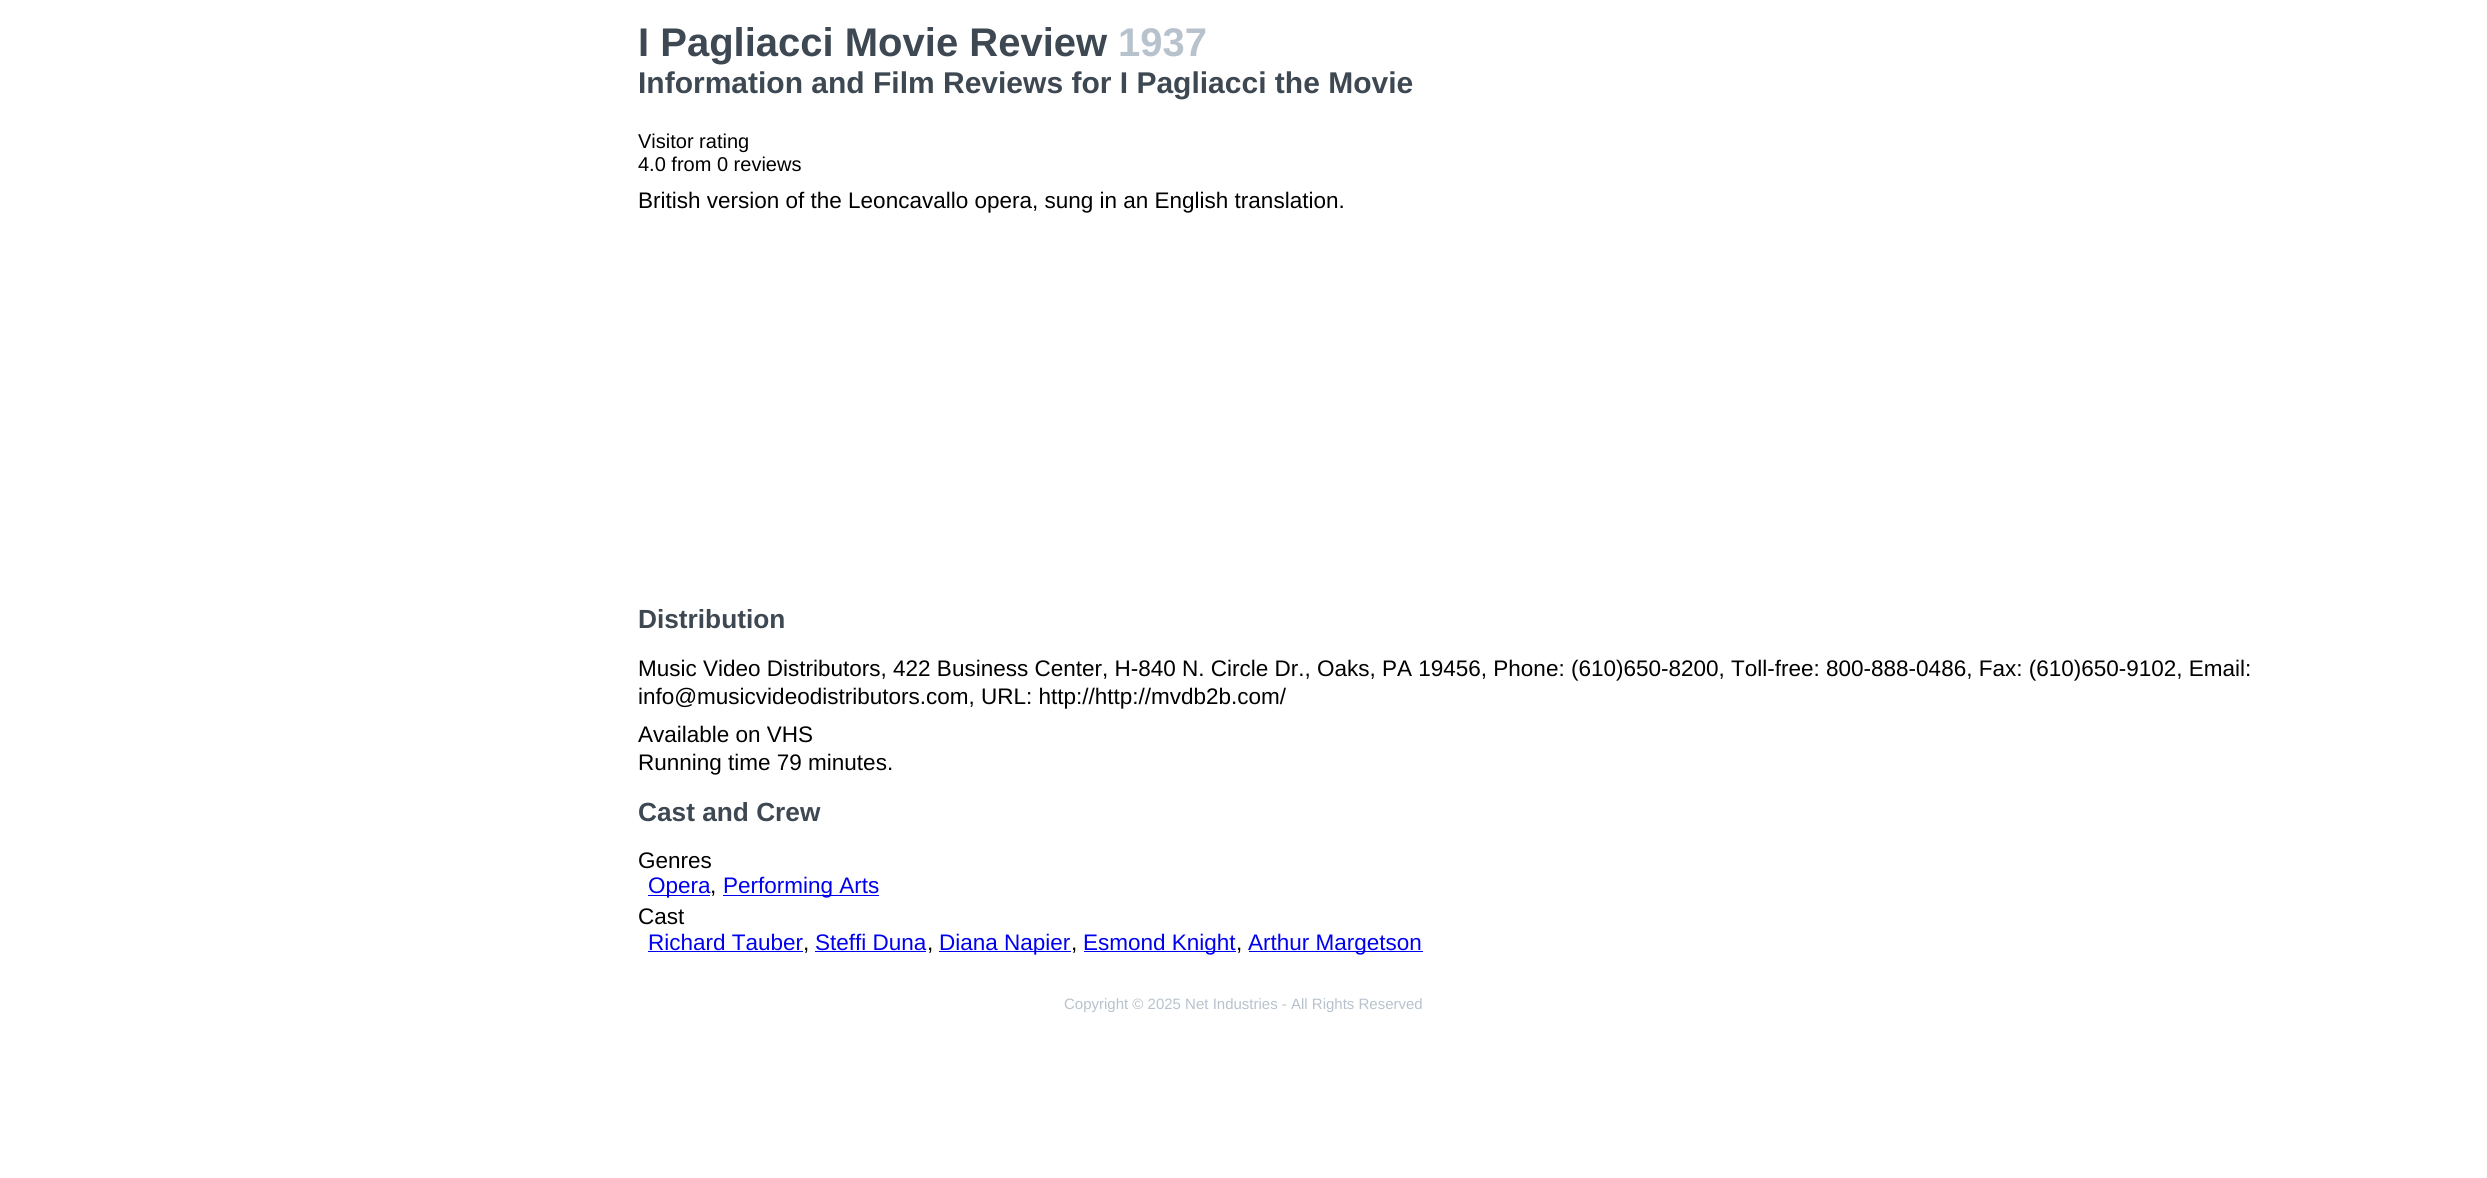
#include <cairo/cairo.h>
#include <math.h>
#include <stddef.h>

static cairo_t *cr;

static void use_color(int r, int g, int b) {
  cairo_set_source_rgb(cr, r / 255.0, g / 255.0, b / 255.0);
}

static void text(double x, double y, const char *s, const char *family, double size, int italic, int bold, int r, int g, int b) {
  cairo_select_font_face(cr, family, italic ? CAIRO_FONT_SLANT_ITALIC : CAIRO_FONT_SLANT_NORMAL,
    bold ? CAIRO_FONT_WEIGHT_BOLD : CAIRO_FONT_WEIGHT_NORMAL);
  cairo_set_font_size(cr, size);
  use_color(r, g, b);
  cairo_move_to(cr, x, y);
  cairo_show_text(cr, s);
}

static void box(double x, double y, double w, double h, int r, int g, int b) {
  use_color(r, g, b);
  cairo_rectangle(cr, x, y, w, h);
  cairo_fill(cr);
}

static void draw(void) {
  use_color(255, 255, 255);
  cairo_paint(cr);
  box(648, 895, 62, 1, 0, 0, 238);
  box(723, 895, 156, 1, 0, 0, 238);
  box(648, 951, 155, 1, 0, 0, 238);
  box(815, 951, 111, 1, 0, 0, 238);
  box(939, 951, 132, 1, 0, 0, 238);
  box(1084, 951, 152, 1, 0, 0, 238);
  box(1249, 951, 174, 1, 0, 0, 238);
  text(638, 56, "I Pagliacci Movie Review", "Liberation Sans", 40, 0, 1, 61, 72, 82);
  text(1118, 56, "1937", "Liberation Sans", 40, 0, 1, 184, 194, 204);
  text(638, 93, "Information and Film Reviews for I Pagliacci the Movie", "Liberation Sans", 30, 0, 1, 61, 72, 82);
  text(638, 148, "Visitor rating", "Liberation Sans", 20, 0, 0, 0, 0, 0);
  text(638, 171, "4.0 from 0 reviews", "Liberation Sans", 20, 0, 0, 0, 0, 0);
  text(638, 208, "British version of the Leoncavallo opera, sung in an English translation.", "Liberation Sans", 22.5, 0, 0, 0, 0, 0);
  text(638, 628, "Distribution", "Liberation Sans", 26.25, 0, 1, 61, 72, 82);
  text(638, 676, "Music Video Distributors, 422 Business Center, H-840 N. Circle Dr., Oaks, PA 19456, Phone: (610)650-8200, Toll-free: 800-888-0486, Fax: (610)650-9102, Email:", "Liberation Sans", 22.5, 0, 0, 0, 0, 0);
  text(638, 704, "info@musicvideodistributors.com, URL: http://http://mvdb2b.com/", "Liberation Sans", 22.5, 0, 0, 0, 0, 0);
  text(638, 742, "Available on VHS", "Liberation Sans", 22.5, 0, 0, 0, 0, 0);
  text(638, 770, "Running time 79 minutes.", "Liberation Sans", 22.5, 0, 0, 0, 0, 0);
  text(638, 821, "Cast and Crew", "Liberation Sans", 26.25, 0, 1, 61, 72, 82);
  text(638, 868, "Genres", "Liberation Sans", 22.5, 0, 0, 0, 0, 0);
  text(648, 893, "Opera", "Liberation Sans", 22.5, 0, 0, 0, 0, 238);
  text(710, 893, ",", "Liberation Sans", 22.5, 0, 0, 0, 0, 0);
  text(723, 893, "Performing Arts", "Liberation Sans", 22.5, 0, 0, 0, 0, 238);
  text(638, 924, "Cast", "Liberation Sans", 22.5, 0, 0, 0, 0, 0);
  text(648, 950, "Richard Tauber", "Liberation Sans", 22.5, 0, 0, 0, 0, 238);
  text(803, 950, ",", "Liberation Sans", 22.5, 0, 0, 0, 0, 0);
  text(815, 950, "Steffi Duna", "Liberation Sans", 22.5, 0, 0, 0, 0, 238);
  text(927, 950, ",", "Liberation Sans", 22.5, 0, 0, 0, 0, 0);
  text(939, 950, "Diana Napier", "Liberation Sans", 22.5, 0, 0, 0, 0, 238);
  text(1071, 950, ",", "Liberation Sans", 22.5, 0, 0, 0, 0, 0);
  text(1083, 950, "Esmond Knight", "Liberation Sans", 22.5, 0, 0, 0, 0, 238);
  text(1236, 950, ",", "Liberation Sans", 22.5, 0, 0, 0, 0, 0);
  text(1248, 950, "Arthur Margetson", "Liberation Sans", 22.5, 0, 0, 0, 0, 238);
  text(1064, 1009, "Copyright © 2025 Net Industries - All Rights Reserved", "Liberation Sans", 15, 0, 0, 184, 194, 204);
}

int main(void) {
  cairo_surface_t *surface = cairo_image_surface_create(CAIRO_FORMAT_RGB24, 2487, 1178);
  cr = cairo_create(surface);
  cairo_font_options_t *options = cairo_font_options_create();
  cairo_font_options_set_hint_metrics(options, CAIRO_HINT_METRICS_OFF);
  cairo_font_options_set_hint_style(options, CAIRO_HINT_STYLE_NONE);
  cairo_set_font_options(cr, options);
  cairo_set_miter_limit(cr, 4);
  draw();
  cairo_surface_write_to_png(surface, "out.png");
  cairo_font_options_destroy(options);
  cairo_destroy(cr);
  cairo_surface_destroy(surface);
  return 0;
}
